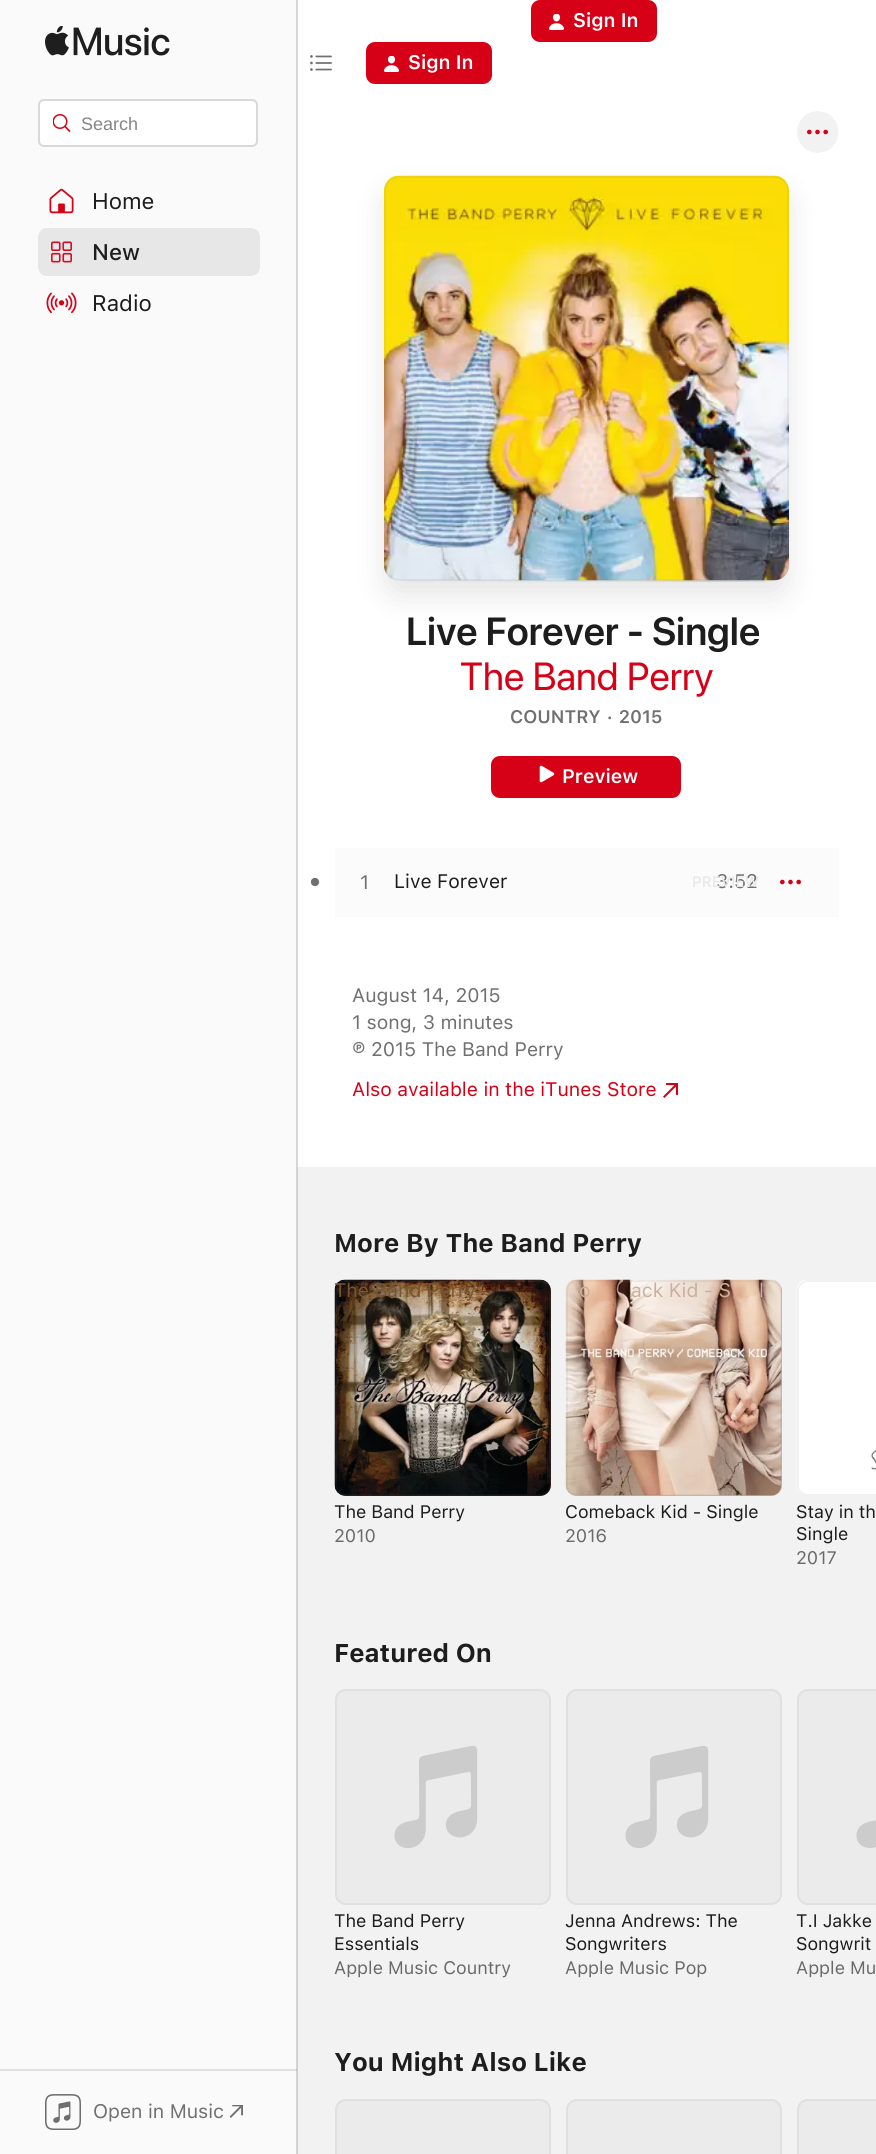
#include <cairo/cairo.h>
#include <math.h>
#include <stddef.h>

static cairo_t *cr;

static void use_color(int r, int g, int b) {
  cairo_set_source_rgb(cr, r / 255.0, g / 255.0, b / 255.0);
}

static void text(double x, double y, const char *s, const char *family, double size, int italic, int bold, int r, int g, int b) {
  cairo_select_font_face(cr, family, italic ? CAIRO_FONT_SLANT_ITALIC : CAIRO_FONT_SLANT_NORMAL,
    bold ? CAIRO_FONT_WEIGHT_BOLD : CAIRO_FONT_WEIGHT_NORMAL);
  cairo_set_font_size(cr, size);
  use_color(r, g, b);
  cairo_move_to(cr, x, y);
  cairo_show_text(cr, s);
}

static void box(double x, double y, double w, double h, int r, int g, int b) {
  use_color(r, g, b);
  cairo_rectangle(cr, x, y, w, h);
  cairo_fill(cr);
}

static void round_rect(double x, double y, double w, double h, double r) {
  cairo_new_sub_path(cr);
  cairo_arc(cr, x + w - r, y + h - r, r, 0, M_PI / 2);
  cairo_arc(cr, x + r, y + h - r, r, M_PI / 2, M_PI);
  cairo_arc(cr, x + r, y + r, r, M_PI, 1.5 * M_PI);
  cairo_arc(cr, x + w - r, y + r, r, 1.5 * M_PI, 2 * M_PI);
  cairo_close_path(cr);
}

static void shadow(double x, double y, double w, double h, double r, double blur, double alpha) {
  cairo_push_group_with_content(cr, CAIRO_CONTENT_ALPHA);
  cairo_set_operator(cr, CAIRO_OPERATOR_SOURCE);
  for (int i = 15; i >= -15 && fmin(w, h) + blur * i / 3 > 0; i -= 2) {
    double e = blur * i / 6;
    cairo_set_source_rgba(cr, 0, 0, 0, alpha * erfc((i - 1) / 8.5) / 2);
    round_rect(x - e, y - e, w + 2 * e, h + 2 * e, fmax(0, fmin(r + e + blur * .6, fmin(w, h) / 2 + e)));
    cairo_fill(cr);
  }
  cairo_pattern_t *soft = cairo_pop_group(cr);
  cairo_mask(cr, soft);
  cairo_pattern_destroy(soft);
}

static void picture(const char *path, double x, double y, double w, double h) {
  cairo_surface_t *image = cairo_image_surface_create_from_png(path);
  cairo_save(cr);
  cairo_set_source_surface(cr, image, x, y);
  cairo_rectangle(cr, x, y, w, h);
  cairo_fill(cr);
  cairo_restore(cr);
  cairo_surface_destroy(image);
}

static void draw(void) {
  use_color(255, 255, 255);
  cairo_paint(cr);
  box(297, 0, 1, 1167, 217, 217, 217);
  use_color(214, 0, 23);
  round_rect(531, 0, 126, 42, 9);
  cairo_fill(cr);
  picture("img_01.png", 549, 14, 15, 16);
  picture("img_02.png", 310, 55, 22, 16);
  round_rect(366, 42, 126, 42, 9);
  cairo_fill(cr);
  picture("img_01.png", 384, 56, 15, 16);
  box(0, 0, 296, 2154, 250, 250, 250);
  box(0, 2069, 297, 2, 225, 225, 225);
  box(296, 0, 1, 2154, 213, 213, 213);
  box(296, 2069, 1, 2, 192, 192, 192);
  picture("img_03.png", 45, 26, 125, 30);
  use_color(255, 255, 255);
  round_rect(39, 100, 218, 46, 5);
  cairo_fill_preserve(cr);
  use_color(217, 217, 217);
  cairo_stroke(cr);
  picture("img_04.png", 53, 114, 18, 18);
  picture("img_05.png", 49, 188, 25, 26);
  use_color(231, 231, 232);
  round_rect(38, 228, 222, 48, 9);
  cairo_fill(cr);
  picture("img_06.png", 51, 241, 21, 22);
  picture("img_07.png", 46, 292, 31, 22);
  picture("img_08.png", 45, 2094, 36, 36);
  picture("img_09.png", 230, 2105, 13, 13);
  picture("img_10.png", 797, 111, 42, 42);
  use_color(0, 0, 0);
  shadow(384, 191, 405, 405, 15, 15, 0.1);
  picture("img_12.png", 406, 580, 360, 2);
  cairo_rectangle(cr, 408.5, 224.5, 356, 356);
  cairo_set_source_rgba(cr, 0.502, 0.502, 0.502, 0.04);
  cairo_set_line_width(cr, 1);
  cairo_stroke(cr);
  picture("img_11.png", 384, 175, 405, 406);
  round_rect(385, 177, 403, 403, 14);
  cairo_set_source_rgba(cr, 0.502, 0.502, 0.502, 0.1);
  cairo_set_line_width(cr, 2);
  cairo_stroke(cr);
  use_color(214, 0, 23);
  round_rect(491, 756, 190, 42, 9);
  cairo_fill(cr);
  picture("img_13.png", 539, 765, 16, 18);
  box(335, 848, 504, 69, 251, 251, 251);
  picture("img_14.png", 311, 878, 9, 9);
  picture("img_15.png", 780, 879, 21, 6);
  picture("img_16.png", 663, 1083, 15, 15);
  box(298, 1167, 578, 987, 242, 242, 242);
  box(297, 1167, 1, 987, 206, 206, 206);
  use_color(38, 21, 15);
  round_rect(335, 1280, 216, 216, 11);
  cairo_fill(cr);
  picture("img_17.png", 334, 1279, 217, 217);
  round_rect(336, 1281, 214, 214, 10);
  cairo_set_source_rgba(cr, 0.502, 0.502, 0.502, 0.1);
  cairo_stroke(cr);
  use_color(207, 179, 161);
  round_rect(566, 1280, 216, 216, 11);
  cairo_fill(cr);
  picture("img_18.png", 565, 1279, 217, 217);
  round_rect(567, 1281, 214, 214, 10);
  cairo_set_source_rgba(cr, 0.502, 0.502, 0.502, 0.1);
  cairo_stroke(cr);
  use_color(255, 255, 255);
  cairo_new_path(cr);
  cairo_move_to(cr, 808, 1280);
  cairo_line_to(cr, 876, 1280);
  cairo_line_to(cr, 876, 1496);
  cairo_line_to(cr, 808, 1496);
  cairo_curve_to(cr, 802, 1496, 797, 1491, 797, 1485);
  cairo_line_to(cr, 797, 1291);
  cairo_curve_to(cr, 797, 1285, 802, 1280, 808, 1280);
  cairo_close_path(cr);
  cairo_fill(cr);
  picture("img_19.png", 796, 1280, 80, 215);
  round_rect(798, 1281, 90, 214, 10);
  cairo_set_source_rgba(cr, 0.502, 0.502, 0.502, 0.1);
  cairo_stroke(cr);
  use_color(235, 235, 235);
  round_rect(335, 1689, 216, 216, 11);
  cairo_fill(cr);
  picture("img_20.png", 335, 1689, 215, 216);
  round_rect(336, 1690, 214, 214, 10);
  cairo_set_source_rgba(cr, 0.502, 0.502, 0.502, 0.1);
  cairo_stroke(cr);
  use_color(235, 235, 235);
  round_rect(566, 1689, 216, 216, 11);
  cairo_fill(cr);
  picture("img_21.png", 574, 1746, 208, 159);
  round_rect(567, 1690, 214, 214, 10);
  cairo_set_source_rgba(cr, 0.502, 0.502, 0.502, 0.1);
  cairo_stroke(cr);
  picture("img_22.png", 797, 1689, 79, 216);
  round_rect(798, 1690, 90, 214, 10);
  cairo_stroke(cr);
  use_color(235, 235, 235);
  cairo_new_path(cr);
  cairo_move_to(cr, 346, 2099);
  cairo_line_to(cr, 540, 2099);
  cairo_curve_to(cr, 546, 2099, 551, 2104, 551, 2110);
  cairo_line_to(cr, 551, 2154);
  cairo_line_to(cr, 335, 2154);
  cairo_line_to(cr, 335, 2110);
  cairo_curve_to(cr, 335, 2104, 340, 2099, 346, 2099);
  cairo_close_path(cr);
  cairo_fill(cr);
  picture("img_23.png", 335, 2099, 215, 11);
  round_rect(336, 2100, 214, 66, 10);
  cairo_set_source_rgba(cr, 0.502, 0.502, 0.502, 0.1);
  cairo_stroke(cr);
  use_color(235, 235, 235);
  cairo_new_path(cr);
  cairo_move_to(cr, 577, 2099);
  cairo_line_to(cr, 771, 2099);
  cairo_curve_to(cr, 777, 2099, 782, 2104, 782, 2110);
  cairo_line_to(cr, 782, 2154);
  cairo_line_to(cr, 566, 2154);
  cairo_line_to(cr, 566, 2110);
  cairo_curve_to(cr, 566, 2104, 571, 2099, 577, 2099);
  cairo_close_path(cr);
  cairo_fill(cr);
  picture("img_24.png", 566, 2099, 216, 10);
  round_rect(567, 2100, 214, 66, 10);
  cairo_set_source_rgba(cr, 0.502, 0.502, 0.502, 0.1);
  cairo_stroke(cr);
  use_color(235, 235, 235);
  cairo_new_path(cr);
  cairo_move_to(cr, 808, 2099);
  cairo_line_to(cr, 876, 2099);
  cairo_line_to(cr, 876, 2154);
  cairo_line_to(cr, 797, 2154);
  cairo_line_to(cr, 797, 2110);
  cairo_curve_to(cr, 797, 2104, 802, 2099, 808, 2099);
  cairo_close_path(cr);
  cairo_fill(cr);
  picture("img_25.png", 797, 2099, 11, 11);
  round_rect(798, 2100, 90, 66, 10);
  cairo_set_source_rgba(cr, 0.502, 0.502, 0.502, 0.1);
  cairo_stroke(cr);
  text(573, 27, "Sign In", "SF SemiBold", 19.5, 0, 0, 255, 255, 255);
  text(408, 69, "Sign In", "SF SemiBold", 19.5, 0, 0, 255, 255, 255);
  text(81, 130, "Search", "Liberation Sans", 18, 0, 0, 133, 133, 133);
  text(92, 209, "Home", "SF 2", 22.5, 0, 0, 29, 29, 29);
  text(92, 260, "New", "SF Medium", 22.5, 0, 0, 29, 29, 29);
  text(92, 311, "Radio", "SF 2", 22.5, 0, 0, 29, 29, 29);
  text(93, 2118, "Open in Music", "SF 2", 19.5, 0, 0, 112, 112, 112);
  text(406, 645, "Live Forever - Single", "SF 2 SemiBold", 39, 0, 0, 29, 29, 29);
  text(460, 690, "The Band Perry", "SF", 39, 0, 0, 214, 0, 23);
  text(510, 723, "COUNTRY · 2015", "SF SemiBold", 18, 0, 0, 112, 112, 112);
  text(562, 783, "Preview", "SF SemiBold", 19.5, 0, 0, 255, 255, 255);
  text(360, 889, "1", "SF 2", 19.5, 0, 0, 112, 112, 112);
  text(394, 888, "Live Forever", "SF 2", 19.5, 0, 0, 29, 29, 29);
  text(716, 888, "3:52", "SF 2", 19.5, 0, 0, 112, 112, 112);
  text(692, 887, "PREVIEW", "SF Medium", 15, 0, 0, 232, 232, 232);
  text(352, 1002, "August 14, 2015", "SF 2", 19.5, 0, 0, 112, 112, 112);
  text(352, 1029, "1 song, 3 minutes", "SF 2", 19.5, 0, 0, 112, 112, 112);
  text(352, 1056, "℗ 2015 The Band Perry", "SF 2", 19.5, 0, 0, 112, 112, 112);
  text(352, 1096, "Also available in the iTunes Store", "SF 2", 19.5, 0, 0, 214, 0, 23);
  text(334, 1252, "More By The Band Perry", "SF", 25.5, 0, 1, 29, 29, 29);
  text(334, 1297, "The Band Perry", "SF 2", 19.5, 0, 0, 117, 86, 54);
  text(334, 1518, "The Band Perry", "SF 2", 18, 0, 0, 29, 29, 29);
  text(334, 1542, "2010", "SF 2", 18, 0, 0, 106, 106, 106);
  text(579, 1297, "o", "SF 2", 19.5, 0, 0, 203, 175, 158);
  text(631, 1297, "ack Kid - S", "SF 2", 19.5, 0, 0, 203, 175, 158);
  text(759, 1297, "l", "SF 2", 19.5, 0, 0, 203, 175, 158);
  text(565, 1518, "Comeback Kid - Single", "SF 2", 18, 0, 0, 29, 29, 29);
  text(565, 1542, "2016", "SF 2", 18, 0, 0, 106, 106, 106);
  text(796, 1518, "Stay in th", "SF 2", 18, 0, 0, 29, 29, 29);
  text(796, 1540, "Single", "SF 2", 18, 0, 0, 29, 29, 29);
  text(796, 1564, "2017", "SF 2", 18, 0, 0, 106, 106, 106);
  text(334, 1662, "Featured On", "SF", 25.5, 0, 1, 29, 29, 29);
  text(334, 1927, "The Band Perry", "SF 2", 18, 0, 0, 29, 29, 29);
  text(334, 1950, "Essentials", "SF 2", 18, 0, 0, 29, 29, 29);
  text(334, 1974, "Apple Music Country", "SF 2", 18, 0, 0, 106, 106, 106);
  text(565, 1927, "Jenna Andrews: The", "SF 2", 18, 0, 0, 29, 29, 29);
  text(565, 1950, "Songwriters", "SF 2", 18, 0, 0, 29, 29, 29);
  text(565, 1974, "Apple Music Pop", "SF 2", 18, 0, 0, 106, 106, 106);
  text(796, 1927, "T.I Jakke", "SF 2", 18, 0, 0, 29, 29, 29);
  text(796, 1950, "Songwrit", "SF 2", 18, 0, 0, 29, 29, 29);
  text(796, 1974, "Apple Mu", "SF 2", 18, 0, 0, 106, 106, 106);
  text(334, 2071, "You Might Also Like", "SF", 25.5, 0, 1, 29, 29, 29);
}

int main(void) {
  cairo_surface_t *surface = cairo_image_surface_create(CAIRO_FORMAT_RGB24, 876, 2154);
  cr = cairo_create(surface);
  cairo_font_options_t *options = cairo_font_options_create();
  cairo_font_options_set_hint_metrics(options, CAIRO_HINT_METRICS_OFF);
  cairo_font_options_set_hint_style(options, CAIRO_HINT_STYLE_NONE);
  cairo_set_font_options(cr, options);
  cairo_set_miter_limit(cr, 4);
  draw();
  cairo_surface_write_to_png(surface, "out.png");
  cairo_font_options_destroy(options);
  cairo_destroy(cr);
  cairo_surface_destroy(surface);
  return 0;
}
